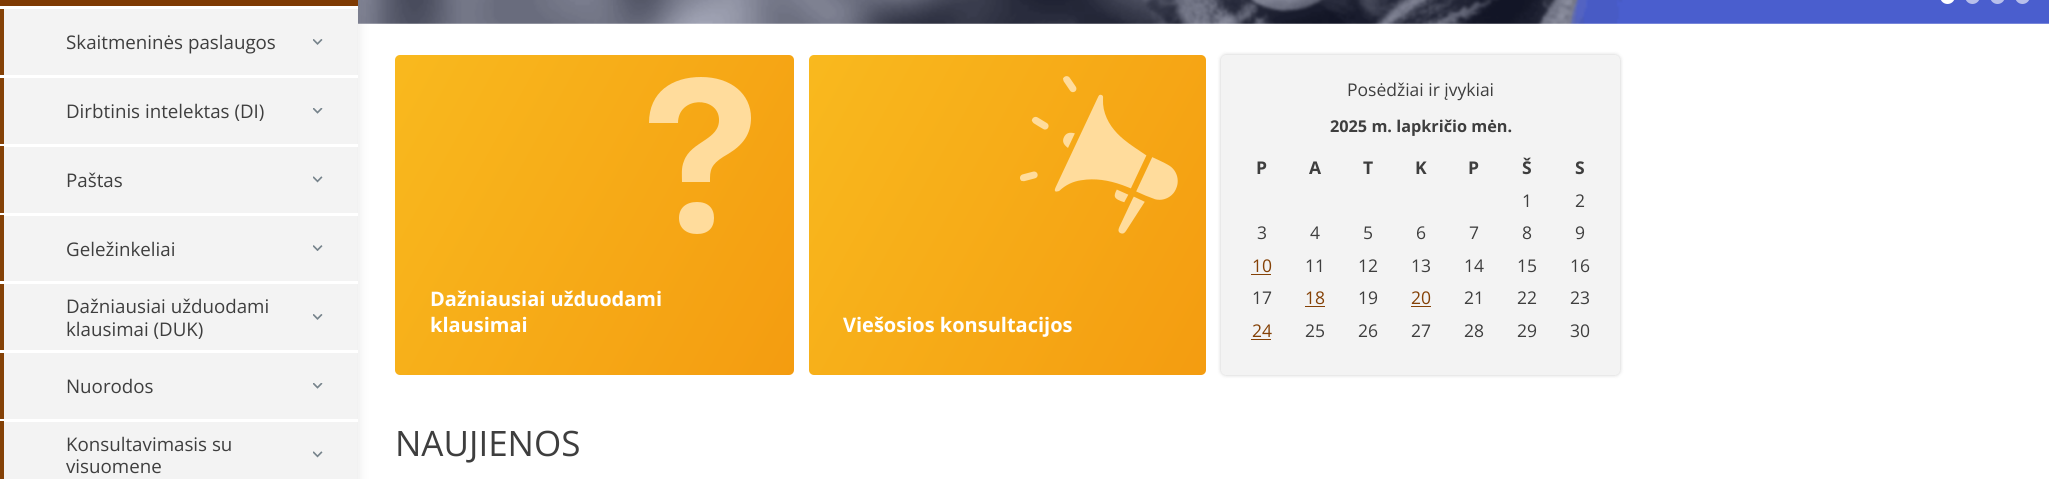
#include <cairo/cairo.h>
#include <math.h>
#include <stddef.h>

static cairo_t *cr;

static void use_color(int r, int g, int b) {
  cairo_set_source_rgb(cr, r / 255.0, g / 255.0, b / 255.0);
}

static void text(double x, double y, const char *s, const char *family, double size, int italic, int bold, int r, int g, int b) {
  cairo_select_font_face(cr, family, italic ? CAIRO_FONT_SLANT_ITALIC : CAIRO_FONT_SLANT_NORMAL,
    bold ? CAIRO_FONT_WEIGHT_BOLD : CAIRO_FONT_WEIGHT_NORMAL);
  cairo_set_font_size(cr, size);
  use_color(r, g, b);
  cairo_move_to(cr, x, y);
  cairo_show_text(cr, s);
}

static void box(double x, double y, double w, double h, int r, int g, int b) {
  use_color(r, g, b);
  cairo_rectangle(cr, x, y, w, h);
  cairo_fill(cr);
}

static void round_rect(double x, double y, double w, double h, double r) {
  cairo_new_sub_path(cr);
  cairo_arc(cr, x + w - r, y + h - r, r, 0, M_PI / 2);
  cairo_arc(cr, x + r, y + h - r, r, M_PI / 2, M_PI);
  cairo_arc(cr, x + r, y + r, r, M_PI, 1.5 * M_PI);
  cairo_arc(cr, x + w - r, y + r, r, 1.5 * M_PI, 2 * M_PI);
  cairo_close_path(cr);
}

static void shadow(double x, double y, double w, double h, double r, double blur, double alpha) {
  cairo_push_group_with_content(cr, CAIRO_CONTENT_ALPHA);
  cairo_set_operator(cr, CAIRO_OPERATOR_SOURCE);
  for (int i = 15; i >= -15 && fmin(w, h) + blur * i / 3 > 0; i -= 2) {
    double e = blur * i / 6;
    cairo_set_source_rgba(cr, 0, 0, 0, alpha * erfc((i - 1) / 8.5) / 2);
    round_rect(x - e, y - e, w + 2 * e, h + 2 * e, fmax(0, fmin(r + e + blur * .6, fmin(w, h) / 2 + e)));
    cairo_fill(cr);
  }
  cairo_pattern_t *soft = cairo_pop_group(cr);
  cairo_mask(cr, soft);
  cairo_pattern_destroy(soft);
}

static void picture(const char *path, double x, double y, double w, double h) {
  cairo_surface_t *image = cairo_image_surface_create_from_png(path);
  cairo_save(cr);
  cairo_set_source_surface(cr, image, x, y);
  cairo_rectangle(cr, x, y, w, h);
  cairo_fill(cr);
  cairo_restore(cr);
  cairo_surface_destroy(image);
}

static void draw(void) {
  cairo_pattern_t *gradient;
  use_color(255, 255, 255);
  cairo_paint(cr);
  picture("img_05.png", 358, 0, 1691, 24);
  use_color(0, 0, 0);
  shadow(-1, -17, 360, 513, 0, 5.5, 0.09);
  box(4, 9, 353, 470, 243, 243, 243);
  box(0, 6, 358, 3, 255, 255, 255);
  box(0, 0, 358, 6, 127, 59, 4);
  box(0, 75, 358, 3, 255, 255, 255);
  box(0, 9, 4, 66, 132, 65, 6);
  picture("img_01.png", 313, 39, 10, 6);
  box(0, 144, 358, 3, 255, 255, 255);
  box(0, 78, 4, 66, 132, 65, 6);
  picture("img_02.png", 313, 108, 10, 6);
  box(0, 213, 358, 3, 255, 255, 255);
  box(0, 146, 4, 67, 132, 65, 6);
  picture("img_03.png", 313, 176, 10, 7);
  box(0, 281, 358, 3, 255, 255, 255);
  box(0, 215, 4, 66, 132, 65, 6);
  picture("img_04.png", 313, 245, 10, 6);
  box(0, 350, 358, 3, 255, 255, 255);
  box(0, 284, 4, 66, 132, 65, 6);
  picture("img_01.png", 313, 314, 10, 6);
  box(0, 419, 358, 3, 255, 255, 255);
  box(0, 353, 4, 66, 132, 65, 6);
  picture("img_02.png", 313, 383, 10, 6);
  box(0, 421, 4, 58, 132, 65, 6);
  picture("img_03.png", 313, 451, 10, 7);
  use_color(255, 255, 255);
  round_rect(1940, -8, 15, 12, 7.5);
  cairo_fill(cr);
  use_color(183, 191, 235);
  round_rect(1965, -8, 15, 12, 7.5);
  cairo_fill(cr);
  round_rect(1990, -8, 15, 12, 7.5);
  cairo_fill(cr);
  round_rect(2015, -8, 15, 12, 7.5);
  cairo_fill(cr);
  gradient = cairo_pattern_create_linear(374, 93, 815, 337);
  cairo_pattern_add_color_stop_rgba(gradient, 0, 0.976, 0.725, 0.118, 1);
  cairo_pattern_add_color_stop_rgba(gradient, 1, 0.957, 0.612, 0.063, 1);
  cairo_set_source(cr, gradient);
  cairo_pattern_destroy(gradient);
  round_rect(395, 55, 399, 320, 5);
  cairo_fill(cr);
  use_color(255, 220, 156);
  cairo_new_path(cr);
  cairo_move_to(cr, 701, 77);
  cairo_curve_to(cr, 672, 77, 649, 92, 649, 123);
  cairo_line_to(cr, 678, 123);
  cairo_curve_to(cr, 678, 96, 718, 96, 719, 119);
  cairo_curve_to(cr, 720, 140, 691, 141, 684, 161);
  cairo_curve_to(cr, 681, 168, 682, 175, 682, 182);
  cairo_line_to(cr, 710, 182);
  cairo_line_to(cr, 710, 178);
  cairo_curve_to(cr, 710, 167, 714, 162, 728, 154);
  cairo_curve_to(cr, 743, 145, 751, 134, 751, 118);
  cairo_curve_to(cr, 751, 94, 731, 77, 701, 77);
  cairo_close_path(cr);
  cairo_move_to(cr, 697, 202);
  cairo_curve_to(cr, 686, 202, 679, 208, 679, 218);
  cairo_curve_to(cr, 679, 228, 686, 234, 697, 234);
  cairo_curve_to(cr, 708, 234, 714, 228, 714, 218);
  cairo_curve_to(cr, 714, 208, 708, 202, 697, 202);
  cairo_close_path(cr);
  cairo_fill(cr);
  gradient = cairo_pattern_create_linear(788, 93, 1227, 337);
  cairo_pattern_add_color_stop_rgba(gradient, 0, 0.976, 0.725, 0.118, 1);
  cairo_pattern_add_color_stop_rgba(gradient, 1, 0.957, 0.612, 0.063, 1);
  cairo_set_source(cr, gradient);
  cairo_pattern_destroy(gradient);
  round_rect(809, 55, 397, 320, 5);
  cairo_fill(cr);
  picture("img_06.png", 1020, 76, 158, 158);
  use_color(0, 0, 0);
  shadow(1221, 55, 399, 320, 5, 2, 0.22);
  use_color(243, 243, 243);
  round_rect(1221, 55, 399, 320, 5);
  cairo_fill(cr);
  box(1251, 274, 20, 1, 132, 65, 6);
  box(1305, 306, 20, 1, 132, 65, 6);
  box(1411, 306, 20, 1, 132, 65, 6);
  box(1251, 339, 20, 1, 132, 65, 6);
  text(66, 49, "Skaitmeninės paslaugos", "Open Sans", 18.75, 0, 0, 62, 62, 62);
  text(66, 118, "Dirbtinis intelektas (DI)", "Open Sans", 18.75, 0, 0, 62, 62, 62);
  text(66, 187, "Paštas", "Open Sans", 18.75, 0, 0, 62, 62, 62);
  text(66, 256, "Geležinkeliai", "Open Sans", 18.75, 0, 0, 62, 62, 62);
  text(66, 313, "Dažniausiai užduodami", "Open Sans", 18.75, 0, 0, 62, 62, 62);
  text(66, 336, "klausimai (DUK)", "Open Sans", 18.75, 0, 0, 62, 62, 62);
  text(66, 393, "Nuorodos", "Open Sans", 18.75, 0, 0, 62, 62, 62);
  text(66, 451, "Konsultavimasis su", "Open Sans", 18.75, 0, 0, 62, 62, 62);
  text(66, 473, "visuomene", "Open Sans", 18.75, 0, 0, 62, 62, 62);
  text(430, 306, "Dažniausiai užduodami", "Open Sans", 20, 0, 1, 255, 255, 255);
  text(430, 332, "klausimai", "Open Sans", 20, 0, 1, 255, 255, 255);
  text(843, 332, "Viešosios konsultacijos", "Open Sans", 20, 0, 1, 255, 255, 255);
  text(1347, 96, "Posėdžiai ir įvykiai", "Open Sans", 17.5, 0, 0, 62, 62, 62);
  text(1330, 132, "2025 m. lapkričio mėn.", "Open Sans", 16.25, 0, 1, 62, 62, 62);
  text(1256, 174, "P", "Open Sans", 17.5, 0, 1, 62, 62, 62);
  text(1309, 174, "A", "Open Sans", 17.5, 0, 1, 62, 62, 62);
  text(1363, 174, "T", "Open Sans", 17.5, 0, 1, 62, 62, 62);
  text(1415, 174, "K", "Open Sans", 17.5, 0, 1, 62, 62, 62);
  text(1468, 174, "P", "Open Sans", 17.5, 0, 1, 62, 62, 62);
  text(1522, 174, "Š", "Open Sans", 17.5, 0, 1, 62, 62, 62);
  text(1575, 174, "S", "Open Sans", 17.5, 0, 1, 62, 62, 62);
  text(1522, 207, "1", "Open Sans", 17.5, 0, 0, 62, 62, 62);
  text(1575, 207, "2", "Open Sans", 17.5, 0, 0, 62, 62, 62);
  text(1257, 239, "3", "Open Sans", 17.5, 0, 0, 62, 62, 62);
  text(1310, 239, "4", "Open Sans", 17.5, 0, 0, 62, 62, 62);
  text(1363, 239, "5", "Open Sans", 17.5, 0, 0, 62, 62, 62);
  text(1416, 239, "6", "Open Sans", 17.5, 0, 0, 62, 62, 62);
  text(1469, 239, "7", "Open Sans", 17.5, 0, 0, 62, 62, 62);
  text(1522, 239, "8", "Open Sans", 17.5, 0, 0, 62, 62, 62);
  text(1575, 239, "9", "Open Sans", 17.5, 0, 0, 62, 62, 62);
  text(1252, 272, "10", "Open Sans", 17.5, 0, 0, 132, 65, 6);
  text(1305, 272, "11", "Open Sans", 17.5, 0, 0, 62, 62, 62);
  text(1358, 272, "12", "Open Sans", 17.5, 0, 0, 62, 62, 62);
  text(1411, 272, "13", "Open Sans", 17.5, 0, 0, 62, 62, 62);
  text(1464, 272, "14", "Open Sans", 17.5, 0, 0, 62, 62, 62);
  text(1517, 272, "15", "Open Sans", 17.5, 0, 0, 62, 62, 62);
  text(1570, 272, "16", "Open Sans", 17.5, 0, 0, 62, 62, 62);
  text(1252, 304, "17", "Open Sans", 17.5, 0, 0, 62, 62, 62);
  text(1305, 304, "18", "Open Sans", 17.5, 0, 0, 132, 65, 6);
  text(1358, 304, "19", "Open Sans", 17.5, 0, 0, 62, 62, 62);
  text(1411, 304, "20", "Open Sans", 17.5, 0, 0, 132, 65, 6);
  text(1464, 304, "21", "Open Sans", 17.5, 0, 0, 62, 62, 62);
  text(1517, 304, "22", "Open Sans", 17.5, 0, 0, 62, 62, 62);
  text(1570, 304, "23", "Open Sans", 17.5, 0, 0, 62, 62, 62);
  text(1252, 337, "24", "Open Sans", 17.5, 0, 0, 132, 65, 6);
  text(1305, 337, "25", "Open Sans", 17.5, 0, 0, 62, 62, 62);
  text(1358, 337, "26", "Open Sans", 17.5, 0, 0, 62, 62, 62);
  text(1411, 337, "27", "Open Sans", 17.5, 0, 0, 62, 62, 62);
  text(1464, 337, "28", "Open Sans", 17.5, 0, 0, 62, 62, 62);
  text(1517, 337, "29", "Open Sans", 17.5, 0, 0, 62, 62, 62);
  text(1570, 337, "30", "Open Sans", 17.5, 0, 0, 62, 62, 62);
  text(395, 456, "NAUJIENOS", "Open Sans", 35, 0, 0, 62, 62, 62);
}

int main(void) {
  cairo_surface_t *surface = cairo_image_surface_create(CAIRO_FORMAT_RGB24, 2049, 479);
  cr = cairo_create(surface);
  cairo_font_options_t *options = cairo_font_options_create();
  cairo_font_options_set_hint_metrics(options, CAIRO_HINT_METRICS_OFF);
  cairo_font_options_set_hint_style(options, CAIRO_HINT_STYLE_NONE);
  cairo_set_font_options(cr, options);
  cairo_set_miter_limit(cr, 4);
  draw();
  cairo_surface_write_to_png(surface, "out.png");
  cairo_font_options_destroy(options);
  cairo_destroy(cr);
  cairo_surface_destroy(surface);
  return 0;
}
